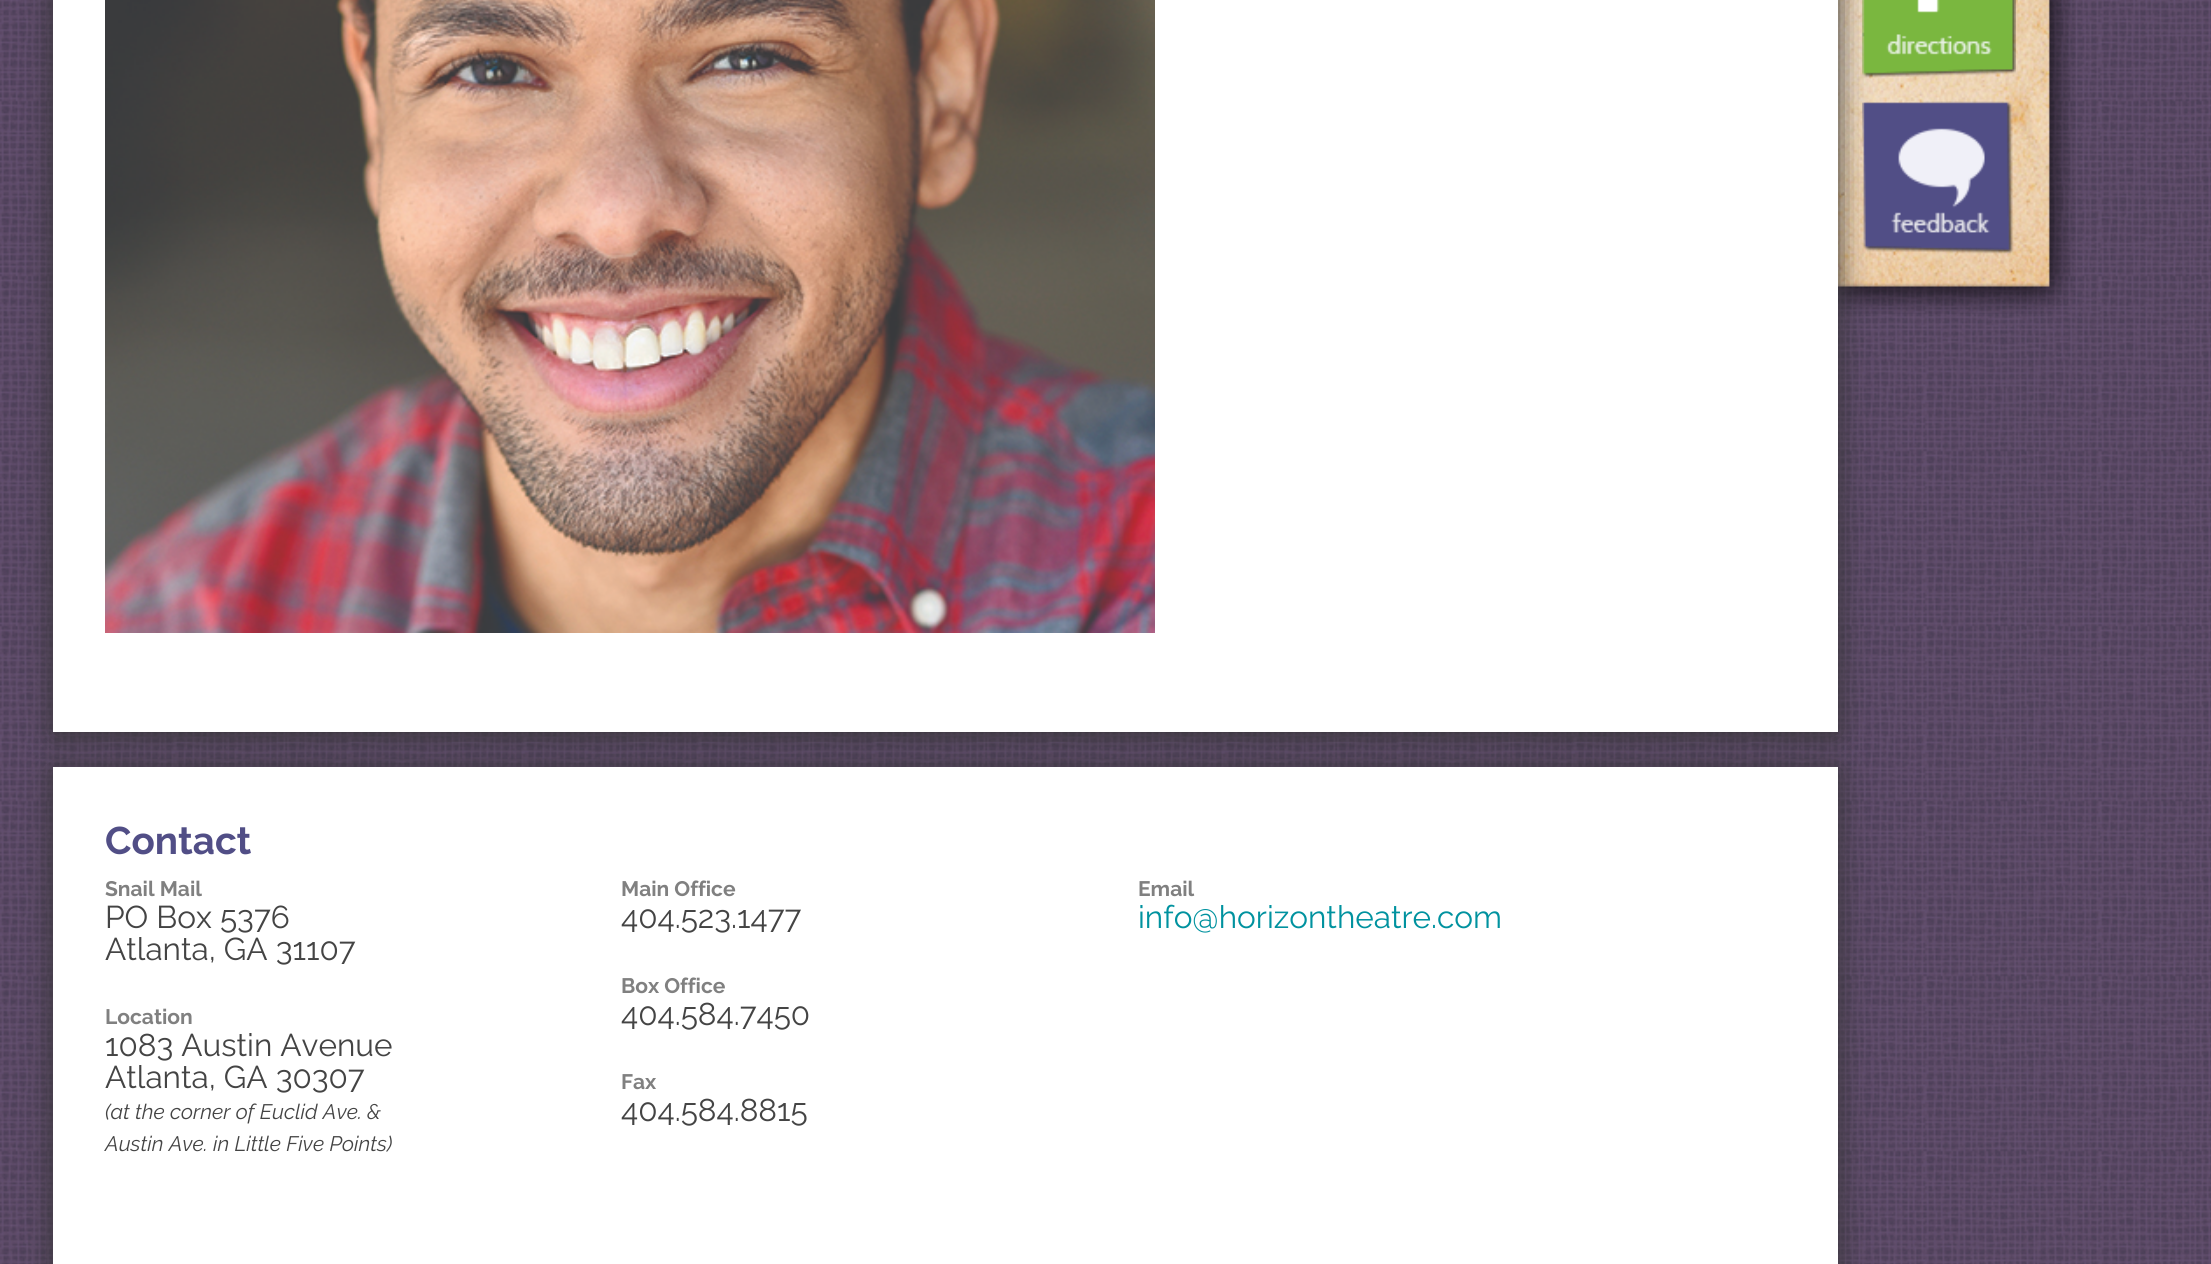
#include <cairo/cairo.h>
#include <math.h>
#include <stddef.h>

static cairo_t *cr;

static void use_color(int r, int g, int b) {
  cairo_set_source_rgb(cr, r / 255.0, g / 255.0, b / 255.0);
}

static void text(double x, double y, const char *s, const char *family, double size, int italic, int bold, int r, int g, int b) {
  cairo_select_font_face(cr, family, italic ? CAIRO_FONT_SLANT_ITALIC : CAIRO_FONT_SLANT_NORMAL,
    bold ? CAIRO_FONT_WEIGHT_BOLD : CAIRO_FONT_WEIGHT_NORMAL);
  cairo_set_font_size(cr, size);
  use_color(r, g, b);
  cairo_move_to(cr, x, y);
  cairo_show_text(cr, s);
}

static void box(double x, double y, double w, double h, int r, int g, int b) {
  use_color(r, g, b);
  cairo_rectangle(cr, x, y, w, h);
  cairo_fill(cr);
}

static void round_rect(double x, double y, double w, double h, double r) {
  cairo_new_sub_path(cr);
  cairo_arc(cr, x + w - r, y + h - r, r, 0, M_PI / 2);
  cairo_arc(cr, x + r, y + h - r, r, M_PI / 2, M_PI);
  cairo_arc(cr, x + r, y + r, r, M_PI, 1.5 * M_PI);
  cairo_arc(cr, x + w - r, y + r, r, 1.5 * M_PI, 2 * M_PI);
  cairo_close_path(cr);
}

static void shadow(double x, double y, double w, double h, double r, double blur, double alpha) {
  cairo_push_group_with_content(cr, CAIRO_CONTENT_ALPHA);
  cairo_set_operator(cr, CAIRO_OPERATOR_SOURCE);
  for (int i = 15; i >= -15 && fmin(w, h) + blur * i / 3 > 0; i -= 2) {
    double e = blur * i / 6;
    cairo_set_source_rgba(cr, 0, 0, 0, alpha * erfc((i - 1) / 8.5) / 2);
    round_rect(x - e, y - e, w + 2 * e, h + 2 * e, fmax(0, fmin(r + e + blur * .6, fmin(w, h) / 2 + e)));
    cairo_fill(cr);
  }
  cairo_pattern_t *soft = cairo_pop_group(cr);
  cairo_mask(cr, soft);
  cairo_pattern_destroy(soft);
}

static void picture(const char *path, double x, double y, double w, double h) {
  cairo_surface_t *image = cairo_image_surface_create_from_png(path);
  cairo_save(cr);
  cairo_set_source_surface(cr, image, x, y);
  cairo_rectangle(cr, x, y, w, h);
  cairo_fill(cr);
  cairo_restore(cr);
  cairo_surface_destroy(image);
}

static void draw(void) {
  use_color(255, 255, 255);
  cairo_paint(cr);
  picture("img_01.png", 0, 0, 2211, 1264);
  picture("img_03.png", 1838, 0, 238, 314);
  use_color(51, 51, 51);
  shadow(53, -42, 1785, 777, 0, 14, 1);
  box(53, 0, 1785, 732, 255, 255, 255);
  picture("img_02.png", 105, 0, 1050, 633);
  picture("img_04.png", 1862, 0, 154, 78);
  picture("img_05.png", 1862, 101, 152, 153);
  use_color(51, 51, 51);
  shadow(53, 770, 1785, 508, 0, 14, 1);
  box(53, 767, 1785, 497, 255, 255, 255);
  text(105, 854, "Contact", "Raleway", 38.5, 0, 1, 81, 78, 134);
  text(105, 896, "Snail Mail", "Raleway", 21, 0, 1, 128, 128, 128);
  text(105, 928, "PO Box 5376", "Raleway", 31.5, 0, 0, 68, 68, 68);
  text(105, 960, "Atlanta, GA 31107", "Raleway", 31.5, 0, 0, 68, 68, 68);
  text(105, 1024, "Location", "Raleway", 21, 0, 1, 128, 128, 128);
  text(105, 1056, "1083 Austin Avenue", "Raleway", 31.5, 0, 0, 68, 68, 68);
  text(105, 1088, "Atlanta, GA 30307", "Raleway", 31.5, 0, 0, 68, 68, 68);
  text(105, 1119, "(at the corner of Euclid Ave. &", "Raleway", 21, 1, 0, 68, 68, 68);
  text(105, 1151, "Austin Ave. in Little Five Points)", "Raleway", 21, 1, 0, 68, 68, 68);
  text(621, 896, "Main Office", "Raleway", 21, 0, 1, 128, 128, 128);
  text(621, 928, "404.523.1477", "Raleway", 31.5, 0, 0, 68, 68, 68);
  text(621, 993, "Box Office", "Raleway", 21, 0, 1, 128, 128, 128);
  text(621, 1025, "404.584.7450", "Raleway", 31.5, 0, 0, 68, 68, 68);
  text(621, 1089, "Fax", "Raleway", 21, 0, 1, 128, 128, 128);
  text(621, 1121, "404.584.8815", "Raleway", 31.5, 0, 0, 68, 68, 68);
  text(1138, 896, "Email", "Raleway", 21, 0, 1, 128, 128, 128);
  text(1138, 928, "info@horizontheatre.com", "Raleway", 31.5, 0, 0, 0, 146, 159);
}

int main(void) {
  cairo_surface_t *surface = cairo_image_surface_create(CAIRO_FORMAT_RGB24, 2211, 1264);
  cr = cairo_create(surface);
  cairo_font_options_t *options = cairo_font_options_create();
  cairo_font_options_set_hint_metrics(options, CAIRO_HINT_METRICS_OFF);
  cairo_font_options_set_hint_style(options, CAIRO_HINT_STYLE_NONE);
  cairo_set_font_options(cr, options);
  cairo_set_miter_limit(cr, 4);
  draw();
  cairo_surface_write_to_png(surface, "out.png");
  cairo_font_options_destroy(options);
  cairo_destroy(cr);
  cairo_surface_destroy(surface);
  return 0;
}
